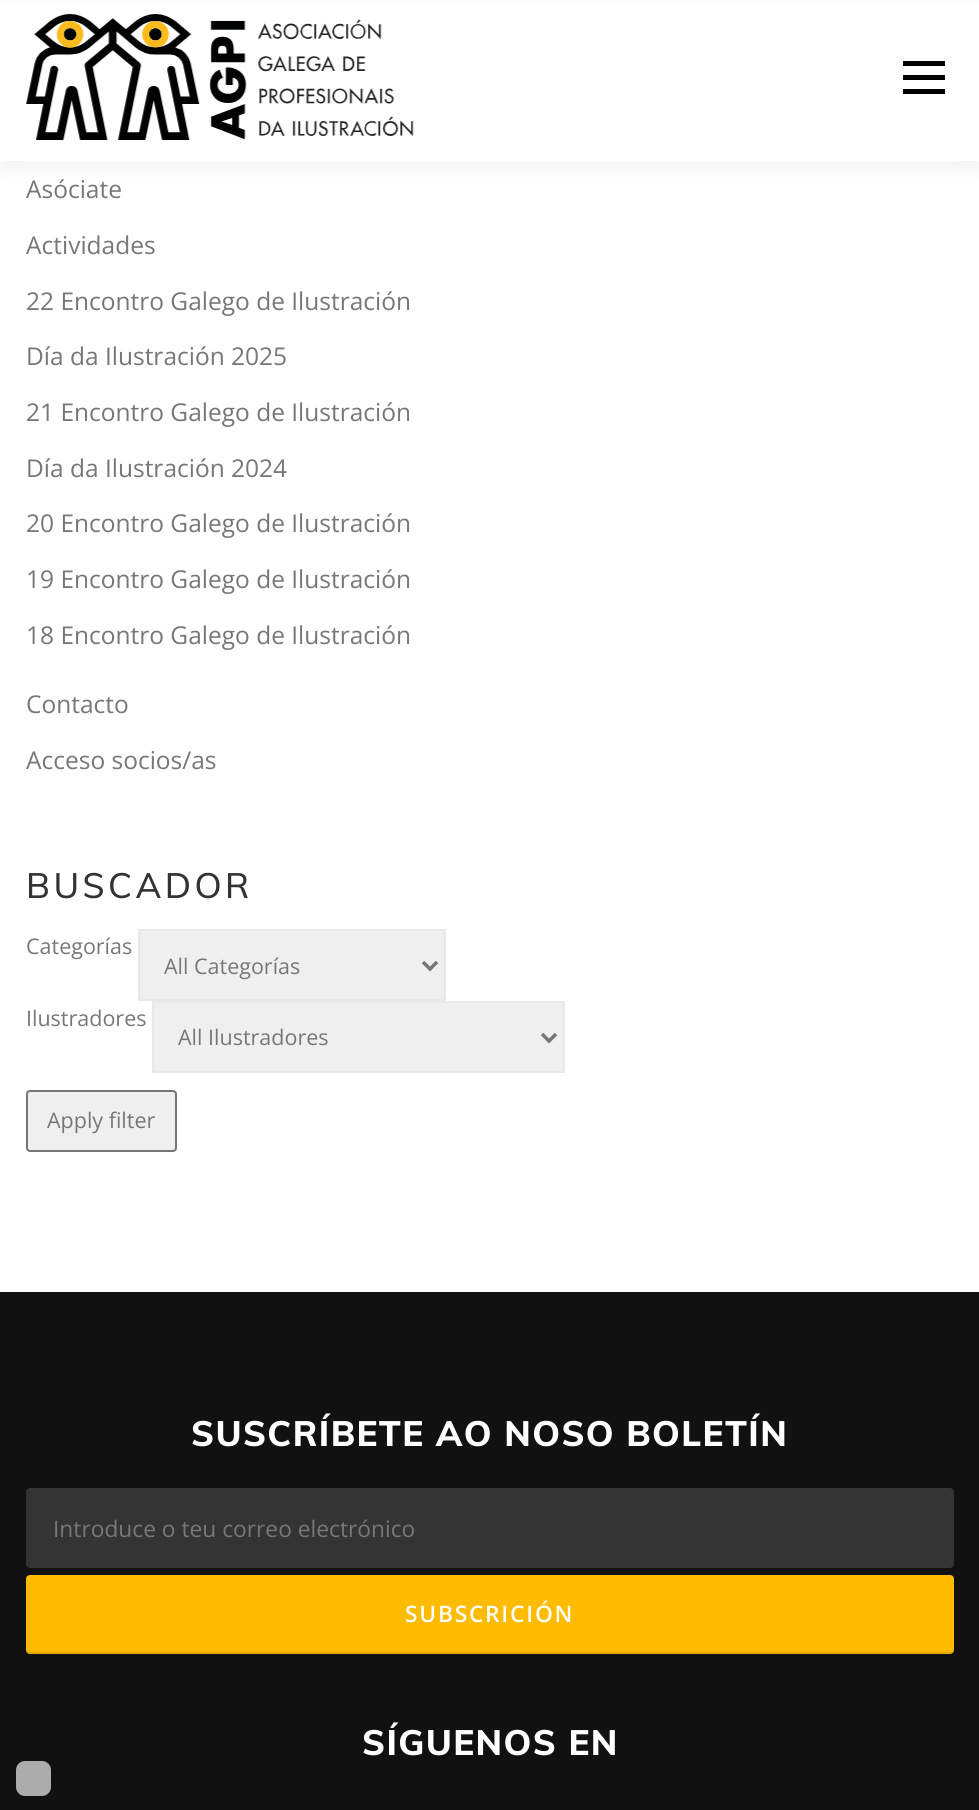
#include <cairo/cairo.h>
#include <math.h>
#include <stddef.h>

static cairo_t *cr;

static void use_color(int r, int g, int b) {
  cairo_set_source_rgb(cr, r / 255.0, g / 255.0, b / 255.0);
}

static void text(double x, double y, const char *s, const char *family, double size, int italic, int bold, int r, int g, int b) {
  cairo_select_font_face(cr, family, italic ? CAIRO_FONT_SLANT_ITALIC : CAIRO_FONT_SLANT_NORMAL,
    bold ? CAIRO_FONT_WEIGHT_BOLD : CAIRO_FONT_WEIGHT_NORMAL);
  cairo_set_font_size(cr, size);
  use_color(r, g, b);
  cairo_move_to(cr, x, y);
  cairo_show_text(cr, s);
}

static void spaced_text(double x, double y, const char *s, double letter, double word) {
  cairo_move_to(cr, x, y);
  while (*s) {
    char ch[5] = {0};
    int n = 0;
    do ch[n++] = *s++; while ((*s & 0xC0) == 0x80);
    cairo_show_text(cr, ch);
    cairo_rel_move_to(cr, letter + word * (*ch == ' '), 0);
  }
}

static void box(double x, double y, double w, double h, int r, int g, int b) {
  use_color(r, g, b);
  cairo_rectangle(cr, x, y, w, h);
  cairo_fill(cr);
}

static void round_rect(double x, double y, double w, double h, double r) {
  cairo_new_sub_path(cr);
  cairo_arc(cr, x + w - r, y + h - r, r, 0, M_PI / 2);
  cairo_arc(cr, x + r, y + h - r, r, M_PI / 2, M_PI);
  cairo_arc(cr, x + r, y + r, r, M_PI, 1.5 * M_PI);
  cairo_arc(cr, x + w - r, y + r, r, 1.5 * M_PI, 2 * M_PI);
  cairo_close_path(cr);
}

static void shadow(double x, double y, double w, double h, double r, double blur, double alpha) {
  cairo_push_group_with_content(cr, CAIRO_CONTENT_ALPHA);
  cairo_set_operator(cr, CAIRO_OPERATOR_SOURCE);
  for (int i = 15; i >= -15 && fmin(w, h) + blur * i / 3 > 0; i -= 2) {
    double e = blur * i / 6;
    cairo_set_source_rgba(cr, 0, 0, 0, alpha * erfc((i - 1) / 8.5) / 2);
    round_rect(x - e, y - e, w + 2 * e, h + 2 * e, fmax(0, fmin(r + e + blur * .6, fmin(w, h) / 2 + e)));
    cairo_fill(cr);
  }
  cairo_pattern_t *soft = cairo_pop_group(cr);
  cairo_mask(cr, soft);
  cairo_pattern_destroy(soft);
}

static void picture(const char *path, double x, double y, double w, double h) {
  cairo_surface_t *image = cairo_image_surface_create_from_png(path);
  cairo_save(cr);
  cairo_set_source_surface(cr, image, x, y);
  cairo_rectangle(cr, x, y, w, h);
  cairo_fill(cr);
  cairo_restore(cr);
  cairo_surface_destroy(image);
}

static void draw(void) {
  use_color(255, 255, 255);
  cairo_paint(cr);
  use_color(50, 50, 50);
  shadow(0, 9, 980, 161, 0, 9, 0.06);
  box(0, 2, 979, 159, 255, 255, 255);
  picture("img_01.png", 26, 14, 388, 126);
  box(903, 75, 42, 5, 0, 0, 0);
  box(903, 61, 42, 5, 0, 0, 0);
  box(903, 89, 42, 5, 0, 0, 0);
  box(26, 161, 928, 1, 255, 255, 255);
  use_color(239, 239, 239);
  cairo_rectangle(cr, 139, 930, 306, 70);
  cairo_fill_preserve(cr);
  use_color(233, 233, 233);
  cairo_stroke(cr);
  cairo_new_path(cr);
  cairo_move_to(cr, 423, 962);
  cairo_line_to(cr, 430, 969);
  cairo_line_to(cr, 437, 962);
  use_color(119, 119, 119);
  cairo_set_line_width(cr, 3.5);
  cairo_stroke(cr);
  use_color(239, 239, 239);
  cairo_rectangle(cr, 153, 1002, 411, 70);
  cairo_fill_preserve(cr);
  use_color(233, 233, 233);
  cairo_set_line_width(cr, 2);
  cairo_stroke(cr);
  cairo_new_path(cr);
  cairo_move_to(cr, 542, 1034);
  cairo_line_to(cr, 549, 1041);
  cairo_line_to(cr, 556, 1034);
  use_color(119, 119, 119);
  cairo_set_line_width(cr, 3.5);
  cairo_stroke(cr);
  use_color(239, 239, 239);
  round_rect(27, 1091, 149, 60, 3);
  cairo_fill_preserve(cr);
  use_color(118, 118, 118);
  cairo_set_line_width(cr, 2);
  cairo_stroke(cr);
  box(0, 1292, 979, 518, 17, 17, 17);
  use_color(52, 52, 52);
  round_rect(26, 1488, 928, 80, 4);
  cairo_fill(cr);
  use_color(255, 187, 0);
  round_rect(26, 1575, 928, 79, 4);
  cairo_fill(cr);
  cairo_set_source_rgba(cr, 0, 0, 0, 0.1);
  cairo_new_path(cr);
  cairo_move_to(cr, 26, 1648);
  cairo_line_to(cr, 26, 1650);
  cairo_curve_to(cr, 26, 1652, 28, 1654, 30, 1654);
  cairo_line_to(cr, 950, 1654);
  cairo_curve_to(cr, 952, 1654, 954, 1652, 954, 1650);
  cairo_line_to(cr, 954, 1648);
  cairo_curve_to(cr, 954, 1650, 952, 1652, 950, 1652);
  cairo_line_to(cr, 30, 1652);
  cairo_curve_to(cr, 28, 1652, 26, 1650, 26, 1648);
  cairo_close_path(cr);
  cairo_fill(cr);
  cairo_set_source_rgba(cr, 0.682, 0.682, 0.682, 0.99);
  round_rect(16, 1761, 35, 35, 9);
  cairo_fill(cr);
  text(26, 198, "Asóciate", "Open Sans", 24.5, 0, 0, 119, 119, 119);
  text(26, 254, "Actividades", "Open Sans", 24.5, 0, 0, 119, 119, 119);
  text(26, 310, "22 Encontro Galego de Ilustración", "Open Sans", 24.5, 0, 0, 119, 119, 119);
  text(26, 365, "Día da Ilustración 2025", "Open Sans", 24.5, 0, 0, 119, 119, 119);
  text(26, 421, "21 Encontro Galego de Ilustración", "Open Sans", 24.5, 0, 0, 119, 119, 119);
  text(26, 477, "Día da Ilustración 2024", "Open Sans", 24.5, 0, 0, 119, 119, 119);
  text(26, 532, "20 Encontro Galego de Ilustración", "Open Sans", 24.5, 0, 0, 119, 119, 119);
  text(26, 588, "19 Encontro Galego de Ilustración", "Open Sans", 24.5, 0, 0, 119, 119, 119);
  text(26, 644, "18 Encontro Galego de Ilustración", "Open Sans", 24.5, 0, 0, 119, 119, 119);
  text(26, 713, "Contacto", "Open Sans", 24.5, 0, 0, 119, 119, 119);
  text(26, 769, "Acceso socios/as", "Open Sans", 24.5, 0, 0, 119, 119, 119);
  cairo_select_font_face(cr, "Muli Medium", CAIRO_FONT_SLANT_NORMAL, CAIRO_FONT_WEIGHT_NORMAL);
  cairo_set_font_size(cr, 35);
  use_color(51, 51, 51);
  spaced_text(26, 898, "BUSCADOR", 3.5, 0);
  text(26, 954, "Categorías", "Open Sans", 21.5, 0, 0, 119, 119, 119);
  text(164, 974, "All Categorías", "Open Sans", 21.5, 0, 0, 119, 119, 119);
  text(26, 1026, "Ilustradores", "Open Sans", 21.5, 0, 0, 119, 119, 119);
  text(178, 1045, "All Ilustradores", "Open Sans", 21.5, 0, 0, 119, 119, 119);
  text(47, 1128, "Apply filter", "Open Sans", 21.5, 0, 0, 119, 119, 119);
  cairo_select_font_face(cr, "Muli ExtraBold", CAIRO_FONT_SLANT_NORMAL, CAIRO_FONT_WEIGHT_NORMAL);
  cairo_set_font_size(cr, 35);
  use_color(255, 255, 255);
  spaced_text(191, 1446, "SUSCRÍBETE AO NOSO BOLETÍN", 1.4, 0);
  text(53, 1537, "Introduce o teu correo electrónico", "Open Sans", 22.75, 0, 0, 119, 119, 119);
  cairo_select_font_face(cr, "Open Sans SemiBold", CAIRO_FONT_SLANT_NORMAL, CAIRO_FONT_WEIGHT_NORMAL);
  use_color(255, 255, 255);
  spaced_text(405, 1622, "SUBSCRICIÓN", 1.75, 0);
  cairo_select_font_face(cr, "Muli ExtraBold", CAIRO_FONT_SLANT_NORMAL, CAIRO_FONT_WEIGHT_NORMAL);
  cairo_set_font_size(cr, 35);
  spaced_text(362, 1755, "SÍGUENOS EN", 1.4, 0);
}

int main(void) {
  cairo_surface_t *surface = cairo_image_surface_create(CAIRO_FORMAT_RGB24, 979, 1810);
  cr = cairo_create(surface);
  cairo_font_options_t *options = cairo_font_options_create();
  cairo_font_options_set_hint_metrics(options, CAIRO_HINT_METRICS_OFF);
  cairo_font_options_set_hint_style(options, CAIRO_HINT_STYLE_NONE);
  cairo_set_font_options(cr, options);
  cairo_set_miter_limit(cr, 4);
  draw();
  cairo_surface_write_to_png(surface, "out.png");
  cairo_font_options_destroy(options);
  cairo_destroy(cr);
  cairo_surface_destroy(surface);
  return 0;
}
